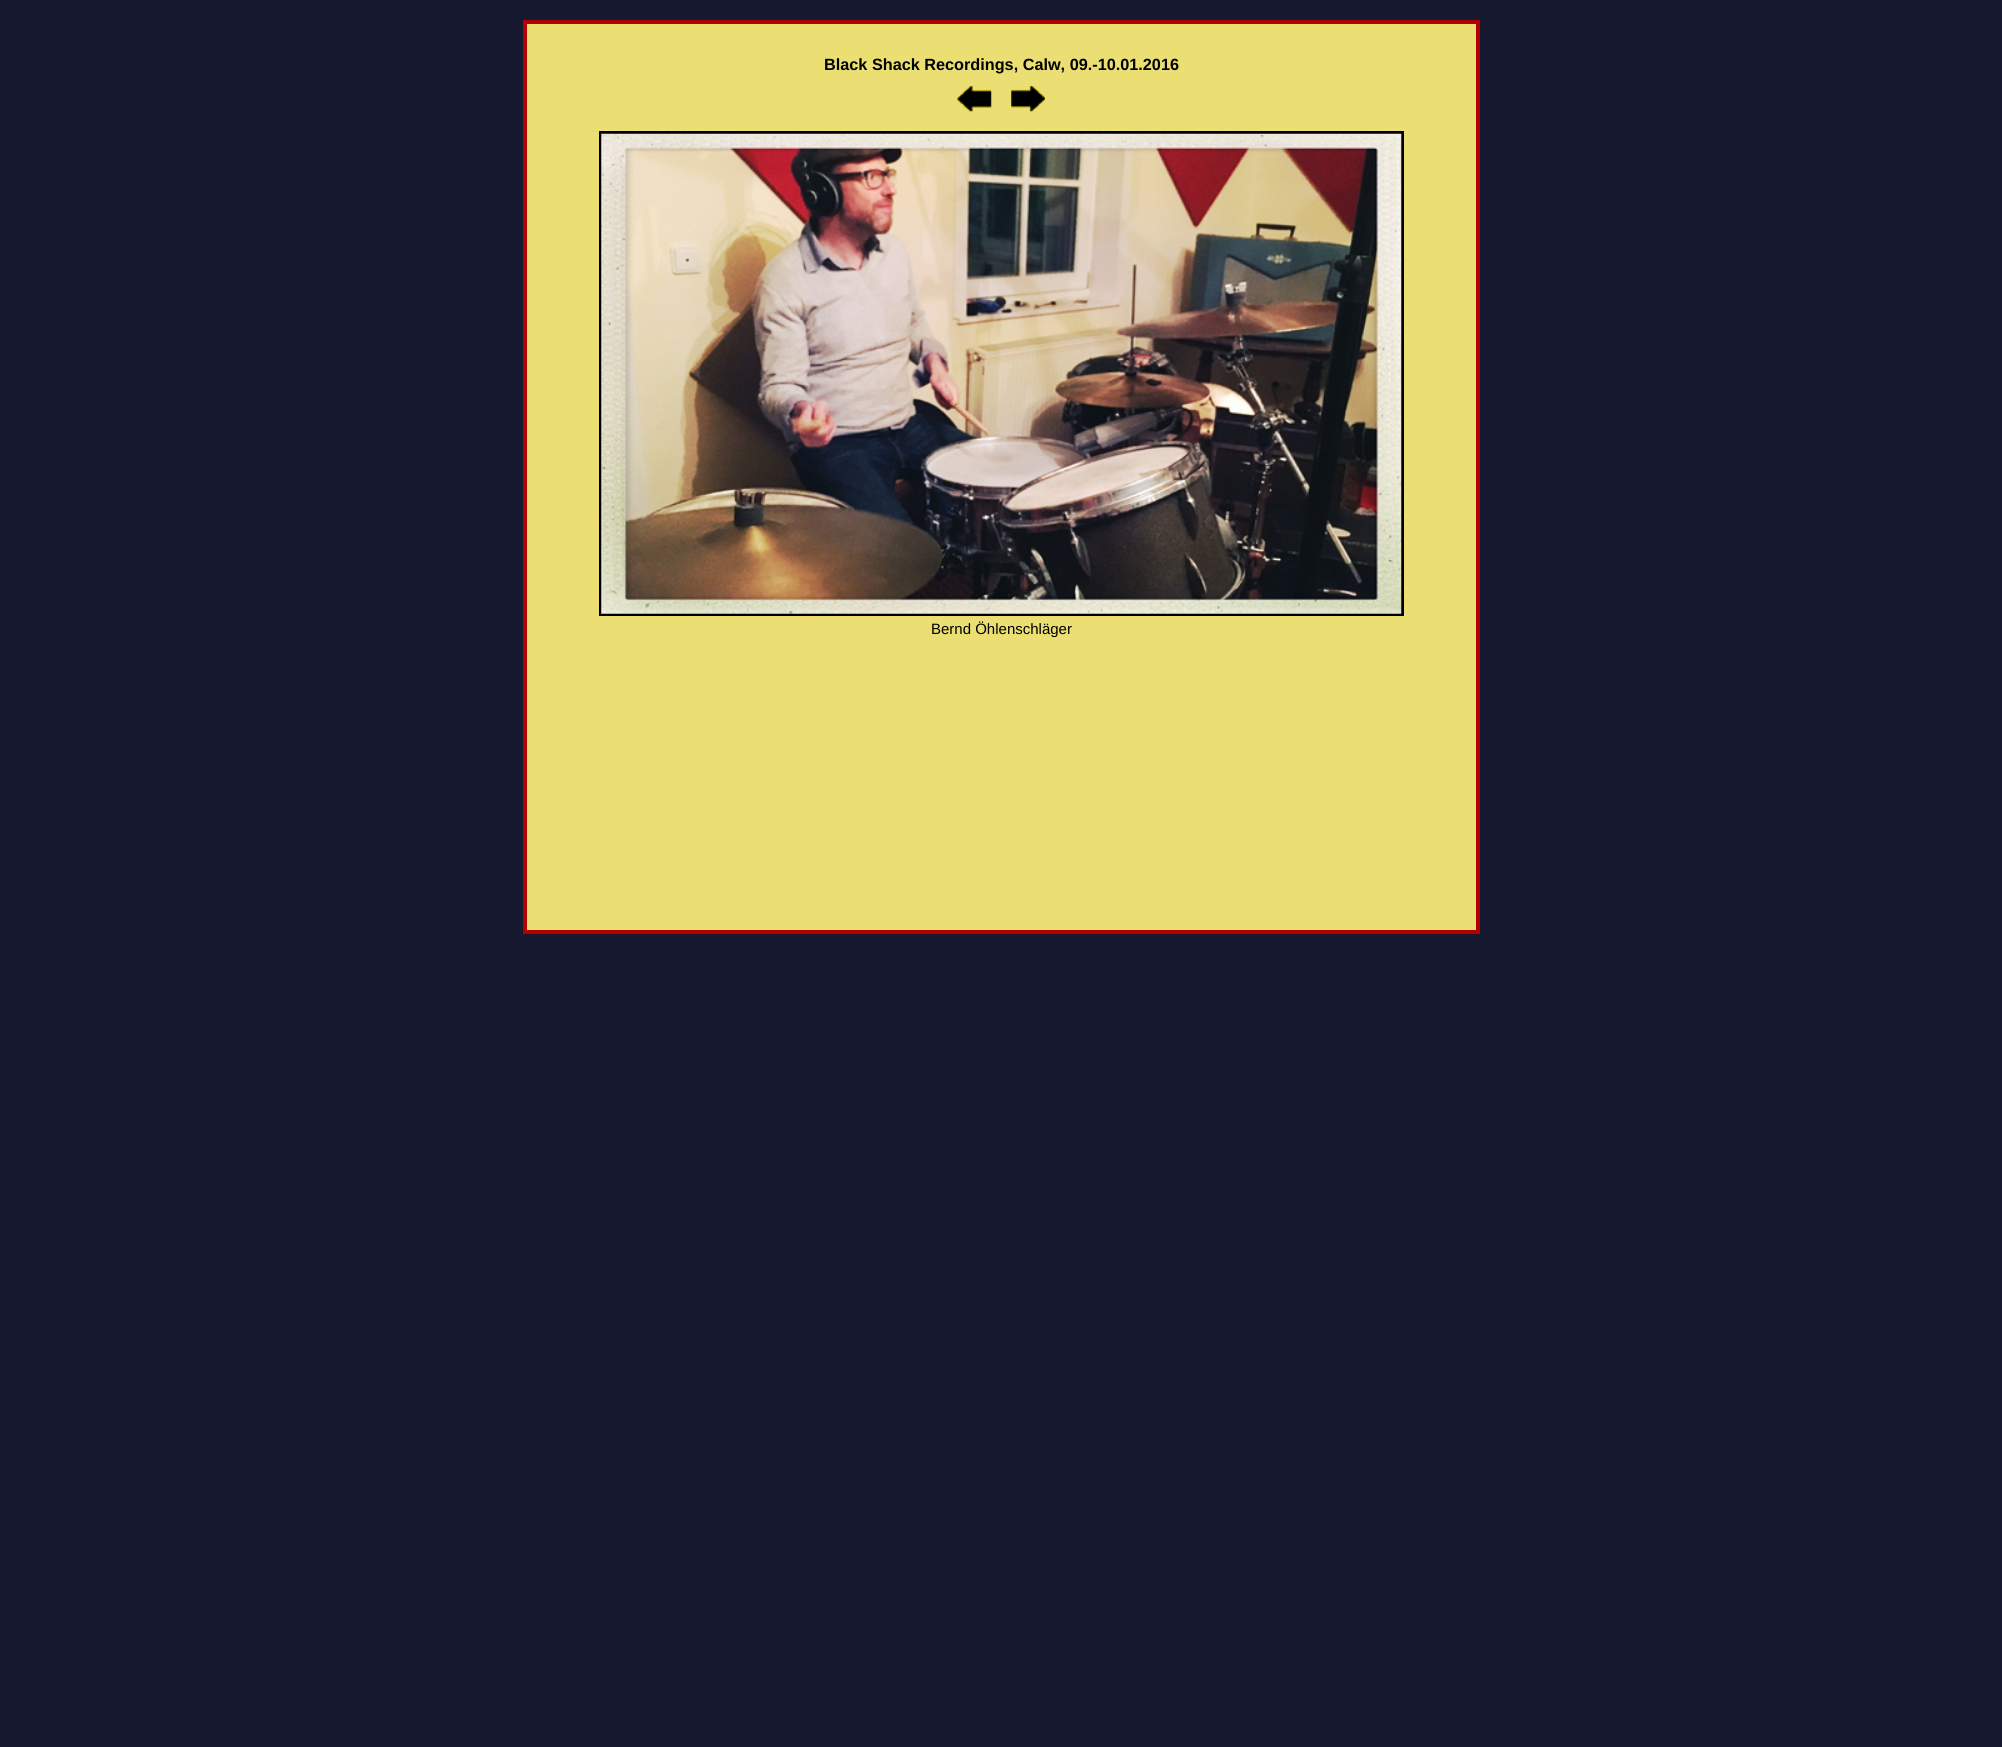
#include <cairo/cairo.h>
#include <math.h>
#include <stddef.h>

static cairo_t *cr;

static void use_color(int r, int g, int b) {
  cairo_set_source_rgb(cr, r / 255.0, g / 255.0, b / 255.0);
}

static void text(double x, double y, const char *s, const char *family, double size, int italic, int bold, int r, int g, int b) {
  cairo_select_font_face(cr, family, italic ? CAIRO_FONT_SLANT_ITALIC : CAIRO_FONT_SLANT_NORMAL,
    bold ? CAIRO_FONT_WEIGHT_BOLD : CAIRO_FONT_WEIGHT_NORMAL);
  cairo_set_font_size(cr, size);
  use_color(r, g, b);
  cairo_move_to(cr, x, y);
  cairo_show_text(cr, s);
}

static void picture(const char *path, double x, double y, double w, double h) {
  cairo_surface_t *image = cairo_image_surface_create_from_png(path);
  cairo_save(cr);
  cairo_set_source_surface(cr, image, x, y);
  cairo_rectangle(cr, x, y, w, h);
  cairo_fill(cr);
  cairo_restore(cr);
  cairo_surface_destroy(image);
}

static void draw(void) {
  use_color(22, 24, 47);
  cairo_paint(cr);
  use_color(235, 223, 115);
  cairo_rectangle(cr, 525, 22, 953, 910);
  cairo_fill_preserve(cr);
  use_color(178, 0, 0);
  cairo_set_line_width(cr, 4);
  cairo_stroke(cr);
  picture("img_01.png", 957, 86, 35, 26);
  picture("img_02.png", 1011, 86, 34, 26);
  cairo_rectangle(cr, 600.5, 132.5, 802, 482);
  use_color(0, 0, 0);
  cairo_set_line_width(cr, 3);
  cairo_stroke(cr);
  picture("img_03.png", 601, 133, 801, 481);
  text(824, 70, "Black Shack Recordings, Calw, 09.-10.01.2016", "Liberation Sans", 16.25, 0, 1, 0, 0, 0);
  text(931, 634, "Bernd Öhlenschläger", "Liberation Sans", 15, 0, 0, 0, 0, 0);
}

int main(void) {
  cairo_surface_t *surface = cairo_image_surface_create(CAIRO_FORMAT_RGB24, 2002, 1747);
  cr = cairo_create(surface);
  cairo_font_options_t *options = cairo_font_options_create();
  cairo_font_options_set_hint_metrics(options, CAIRO_HINT_METRICS_OFF);
  cairo_font_options_set_hint_style(options, CAIRO_HINT_STYLE_NONE);
  cairo_set_font_options(cr, options);
  cairo_set_miter_limit(cr, 4);
  draw();
  cairo_surface_write_to_png(surface, "out.png");
  cairo_font_options_destroy(options);
  cairo_destroy(cr);
  cairo_surface_destroy(surface);
  return 0;
}
